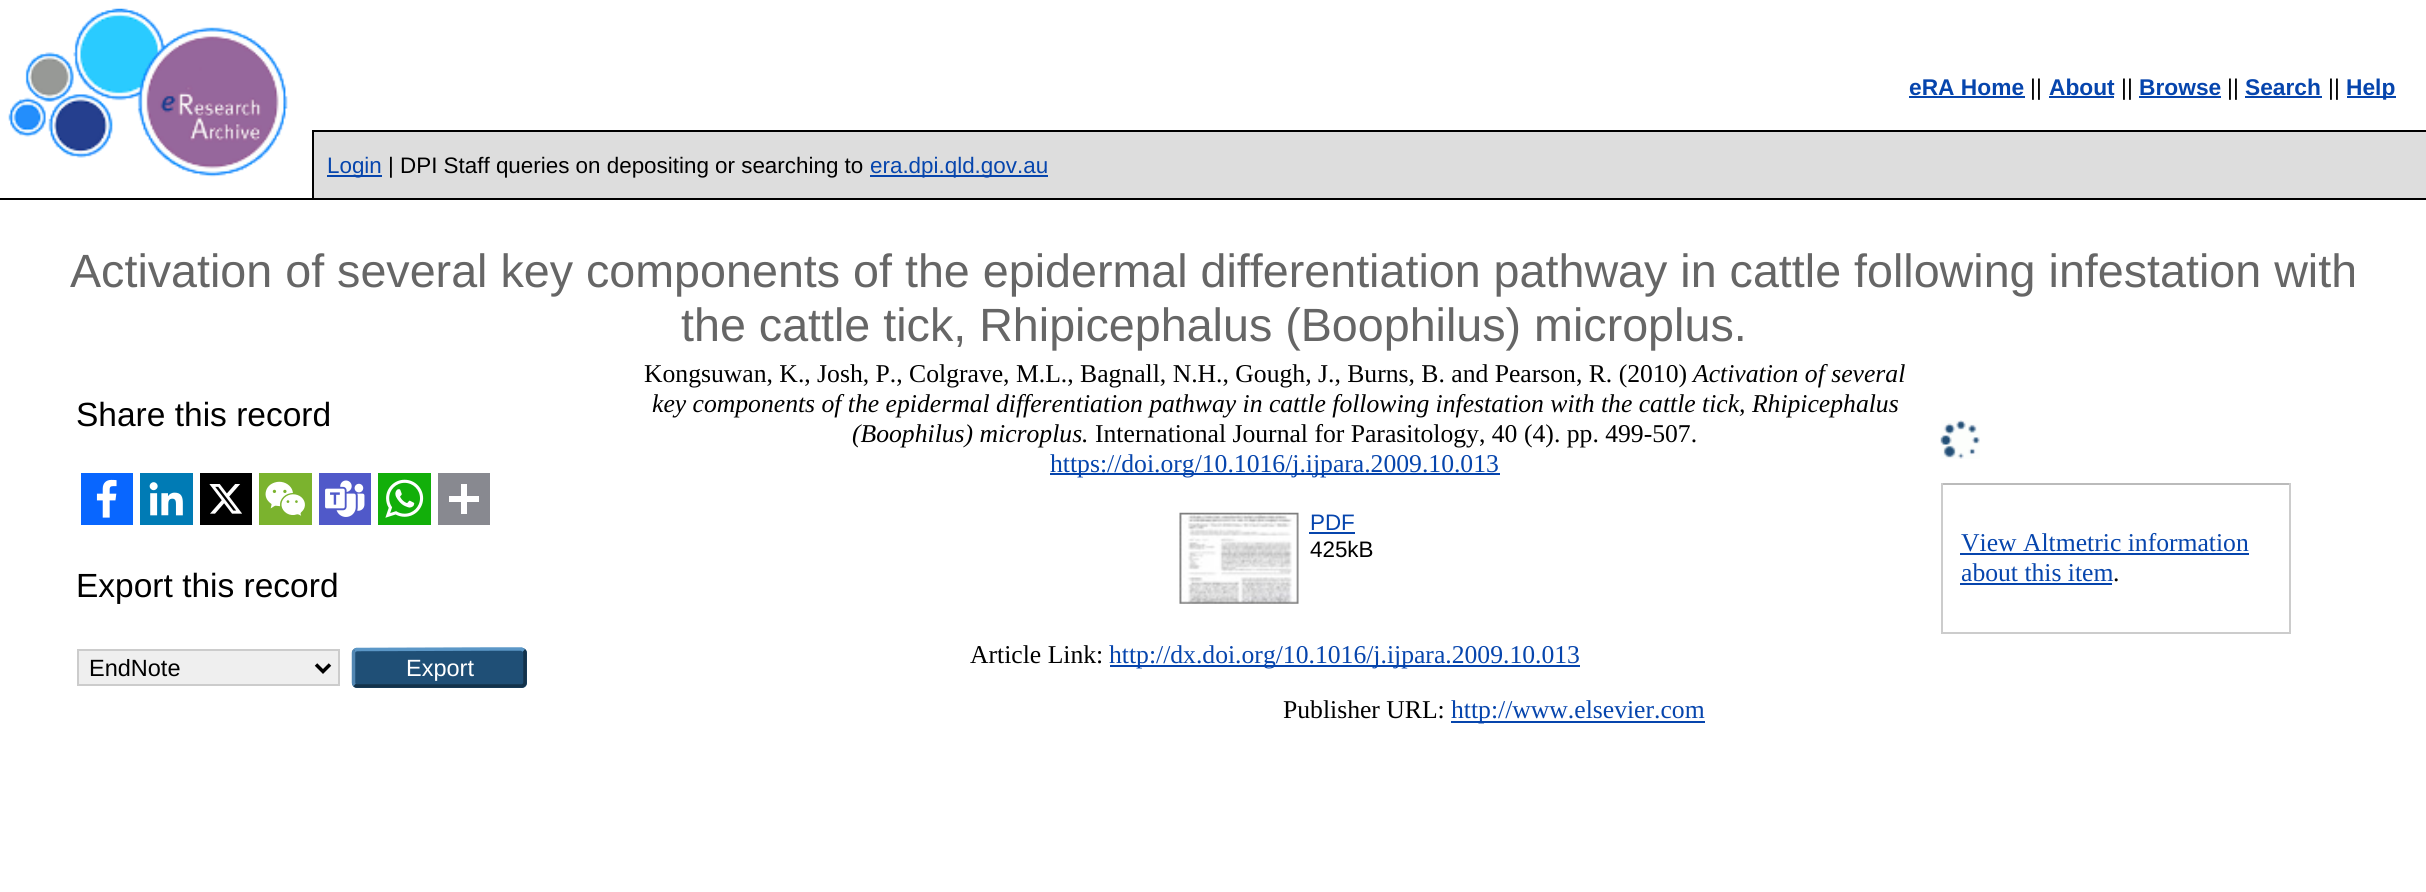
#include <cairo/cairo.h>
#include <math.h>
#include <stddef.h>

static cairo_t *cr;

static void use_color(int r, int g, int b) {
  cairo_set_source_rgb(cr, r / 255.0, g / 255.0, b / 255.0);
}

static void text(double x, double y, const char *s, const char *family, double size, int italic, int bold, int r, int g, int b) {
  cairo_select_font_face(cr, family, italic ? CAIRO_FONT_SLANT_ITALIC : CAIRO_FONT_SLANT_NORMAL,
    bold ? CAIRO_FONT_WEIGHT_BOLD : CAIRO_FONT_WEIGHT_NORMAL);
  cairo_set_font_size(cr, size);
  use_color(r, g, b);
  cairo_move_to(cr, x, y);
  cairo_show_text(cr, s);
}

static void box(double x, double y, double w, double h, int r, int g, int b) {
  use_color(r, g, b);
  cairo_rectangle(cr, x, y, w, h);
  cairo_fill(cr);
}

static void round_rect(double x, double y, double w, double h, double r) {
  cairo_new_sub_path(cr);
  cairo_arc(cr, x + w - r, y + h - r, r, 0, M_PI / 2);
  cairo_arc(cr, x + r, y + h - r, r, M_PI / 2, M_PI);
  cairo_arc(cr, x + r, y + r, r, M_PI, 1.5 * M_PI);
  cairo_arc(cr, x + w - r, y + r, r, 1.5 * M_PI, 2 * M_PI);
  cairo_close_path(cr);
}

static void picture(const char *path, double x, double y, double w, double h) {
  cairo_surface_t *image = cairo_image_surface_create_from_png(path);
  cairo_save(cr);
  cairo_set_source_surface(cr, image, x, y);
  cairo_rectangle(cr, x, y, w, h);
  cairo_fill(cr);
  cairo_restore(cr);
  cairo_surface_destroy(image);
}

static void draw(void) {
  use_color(255, 255, 255);
  cairo_paint(cr);
  box(0, 198, 2426, 2, 0, 0, 0);
  picture("img_01.png", 8, 8, 280, 169);
  box(1909, 96, 116, 2, 6, 69, 173);
  box(2049, 96, 65, 2, 6, 69, 173);
  box(2139, 96, 82, 2, 6, 69, 173);
  box(2245, 96, 77, 2, 6, 69, 173);
  box(2347, 96, 49, 2, 6, 69, 173);
  box(314, 132, 2112, 66, 221, 221, 221);
  box(312, 130, 2114, 2, 0, 0, 0);
  box(312, 130, 2, 68, 0, 0, 0);
  box(327, 175, 55, 2, 6, 69, 173);
  box(870, 175, 178, 2, 6, 69, 173);
  box(81, 473, 52, 52, 8, 102, 255);
  box(140, 473, 53, 52, 0, 123, 181);
  box(200, 473, 52, 52, 0, 0, 0);
  box(259, 473, 53, 52, 123, 179, 46);
  box(319, 473, 52, 52, 80, 89, 201);
  box(378, 473, 53, 52, 18, 175, 10);
  box(438, 473, 52, 52, 136, 137, 144);
  picture("img_02.png", 96, 479, 21, 39);
  picture("img_03.png", 149, 482, 34, 34);
  picture("img_04.png", 209, 484, 33, 30);
  picture("img_05.png", 265, 481, 40, 35);
  picture("img_06.png", 325, 480, 40, 37);
  picture("img_07.png", 385, 479, 39, 39);
  box(461, 484, 6, 30, 255, 255, 255);
  box(449, 496, 30, 6, 255, 255, 255);
  use_color(239, 239, 239);
  cairo_rectangle(cr, 78, 650, 261, 35);
  cairo_fill_preserve(cr);
  use_color(204, 204, 204);
  cairo_stroke(cr);
  cairo_new_path(cr);
  cairo_move_to(cr, 316, 664.5);
  cairo_line_to(cr, 323, 671.5);
  cairo_line_to(cr, 330, 664.5);
  use_color(0, 0, 0);
  cairo_set_line_width(cr, 3.5);
  cairo_stroke(cr);
  use_color(31, 79, 118);
  round_rect(352, 648, 175, 40, 5);
  cairo_fill(cr);
  cairo_new_path(cr);
  cairo_move_to(cr, 354.5, 650.5);
  cairo_line_to(cr, 356.5, 649.5);
  cairo_line_to(cr, 494, 649);
  cairo_line_to(cr, 521.5, 649);
  cairo_line_to(cr, 524, 650.5);
  use_color(91, 151, 199);
  cairo_stroke(cr);
  cairo_new_path(cr);
  cairo_move_to(cr, 524, 650.5);
  cairo_curve_to(cr, 524.5, 651, 525, 652, 525, 653);
  cairo_line_to(cr, 525, 682.5);
  cairo_curve_to(cr, 525, 683.5, 524.5, 684.5, 524, 685);
  cairo_curve_to(cr, 523.5, 685.5, 522.5, 686, 521.5, 686);
  cairo_line_to(cr, 357, 686);
  cairo_curve_to(cr, 356, 686, 355, 685.5, 354.5, 685);
  use_color(19, 50, 74);
  cairo_stroke(cr);
  cairo_new_path(cr);
  cairo_move_to(cr, 354.5, 685);
  cairo_curve_to(cr, 354, 684.5, 353.5, 683.5, 353.5, 682.5);
  cairo_line_to(cr, 353.5, 653);
  cairo_curve_to(cr, 353.5, 652, 354, 651, 354.5, 650.5);
  use_color(82, 135, 179);
  cairo_stroke(cr);
  box(1050, 473, 450, 2, 6, 69, 173);
  picture("img_08.png", 1179, 512, 120, 92);
  box(1309, 532, 46, 2, 6, 69, 173);
  box(1110, 665, 470, 2, 6, 69, 173);
  box(1451, 721, 254, 2, 6, 69, 173);
  picture("img_09.png", 1940, 420, 40, 39);
  box(1941, 483, 350, 2, 187, 187, 187);
  box(2289, 483, 2, 151, 204, 204, 204);
  box(1941, 632, 350, 2, 204, 204, 204);
  box(1941, 483, 2, 151, 204, 204, 204);
  box(1960, 553, 289, 2, 6, 69, 173);
  box(1960, 583, 152, 2, 6, 69, 173);
  text(1909, 95, "eRA Home", "Liberation Sans", 22.75, 0, 1, 6, 69, 173);
  text(2030, 95, "||", "Liberation Sans", 22.75, 0, 0, 0, 0, 0);
  text(2049, 95, "About", "Liberation Sans", 22.75, 0, 1, 6, 69, 173);
  text(2121, 95, "||", "Liberation Sans", 22.75, 0, 0, 0, 0, 0);
  text(2139, 95, "Browse", "Liberation Sans", 22.75, 0, 1, 6, 69, 173);
  text(2227, 95, "||", "Liberation Sans", 22.75, 0, 0, 0, 0, 0);
  text(2245, 95, "Search", "Liberation Sans", 22.75, 0, 1, 6, 69, 173);
  text(2328, 95, "||", "Liberation Sans", 22.75, 0, 0, 0, 0, 0);
  text(2346, 95, "Help", "Liberation Sans", 22.75, 0, 1, 6, 69, 173);
  text(327, 173, "Login", "Liberation Sans", 22.4, 0, 0, 6, 69, 173);
  text(388, 173, "| DPI Staff queries on depositing or searching to", "Liberation Sans", 22.4, 0, 0, 0, 0, 0);
  text(870, 173, "era.dpi.qld.gov.au", "Liberation Sans", 22.4, 0, 0, 6, 69, 173);
  text(70, 287, "Activation of several key components of the epidermal differentiation pathway in cattle following infestation with", "Liberation Sans", 46.65, 0, 0, 102, 102, 102);
  text(681, 341, "the cattle tick, Rhipicephalus (Boophilus) microplus.", "Liberation Sans", 46.65, 0, 0, 102, 102, 102);
  text(76, 426, "Share this record", "Liberation Sans", 33.5, 0, 0, 0, 0, 0);
  text(76, 597, "Export this record", "Liberation Sans", 33.5, 0, 0, 0, 0, 0);
  text(89, 676, "EndNote", "Liberation Sans", 23.5, 0, 0, 0, 0, 0);
  text(406, 676, "Export", "Liberation Sans", 23.5, 0, 0, 255, 255, 255);
  text(644, 382, "Kongsuwan, K., Josh, P., Colgrave, M.L., Bagnall, N.H., Gough, J., Burns, B. and Pearson, R. (2010)", "Liberation Serif", 25.65, 0, 0, 0, 0, 0);
  text(1693, 382, "Activation of several", "Liberation Serif", 25.65, 1, 0, 0, 0, 0);
  text(652, 412, "key components of the epidermal differentiation pathway in cattle following infestation with the cattle tick, Rhipicephalus", "Liberation Serif", 25.65, 1, 0, 0, 0, 0);
  text(852, 442, "(Boophilus) microplus.", "Liberation Serif", 25.65, 1, 0, 0, 0, 0);
  text(1095, 442, "International Journal for Parasitology, 40", "Liberation Serif", 25.65, 0, 0, 0, 0, 0);
  text(1524, 442, "(4). pp. 499-507.", "Liberation Serif", 25.65, 0, 0, 0, 0, 0);
  text(1050, 472, "https://doi.org/10.1016/j.ijpara.2009.10.013", "Liberation Serif", 25.65, 0, 0, 6, 69, 173);
  text(1310, 530, "PDF", "Liberation Sans", 22.4, 0, 0, 6, 69, 173);
  text(1310, 557, "425kB", "Liberation Sans", 22.4, 0, 0, 0, 0, 0);
  text(970, 663, "Article Link:", "Liberation Serif", 25.65, 0, 0, 0, 0, 0);
  text(1109, 663, "http://dx.doi.org/10.1016/j.ijpara.2009.10.013", "Liberation Serif", 25.65, 0, 0, 6, 69, 173);
  text(1283, 718, "Publisher URL:", "Liberation Serif", 25.65, 0, 0, 0, 0, 0);
  text(1451, 718, "http://www.elsevier.com", "Liberation Serif", 25.65, 0, 0, 6, 69, 173);
  text(1961, 551, "View Altmetric information", "Liberation Serif", 25.65, 0, 0, 6, 69, 173);
  text(1961, 581, "about this item", "Liberation Serif", 25.65, 0, 0, 6, 69, 173);
  text(2113, 581, ".", "Liberation Serif", 25.65, 0, 0, 0, 0, 0);
}

int main(void) {
  cairo_surface_t *surface = cairo_image_surface_create(CAIRO_FORMAT_RGB24, 2426, 892);
  cr = cairo_create(surface);
  cairo_font_options_t *options = cairo_font_options_create();
  cairo_font_options_set_hint_metrics(options, CAIRO_HINT_METRICS_OFF);
  cairo_font_options_set_hint_style(options, CAIRO_HINT_STYLE_NONE);
  cairo_set_font_options(cr, options);
  cairo_set_miter_limit(cr, 4);
  draw();
  cairo_surface_write_to_png(surface, "out.png");
  cairo_font_options_destroy(options);
  cairo_destroy(cr);
  cairo_surface_destroy(surface);
  return 0;
}
